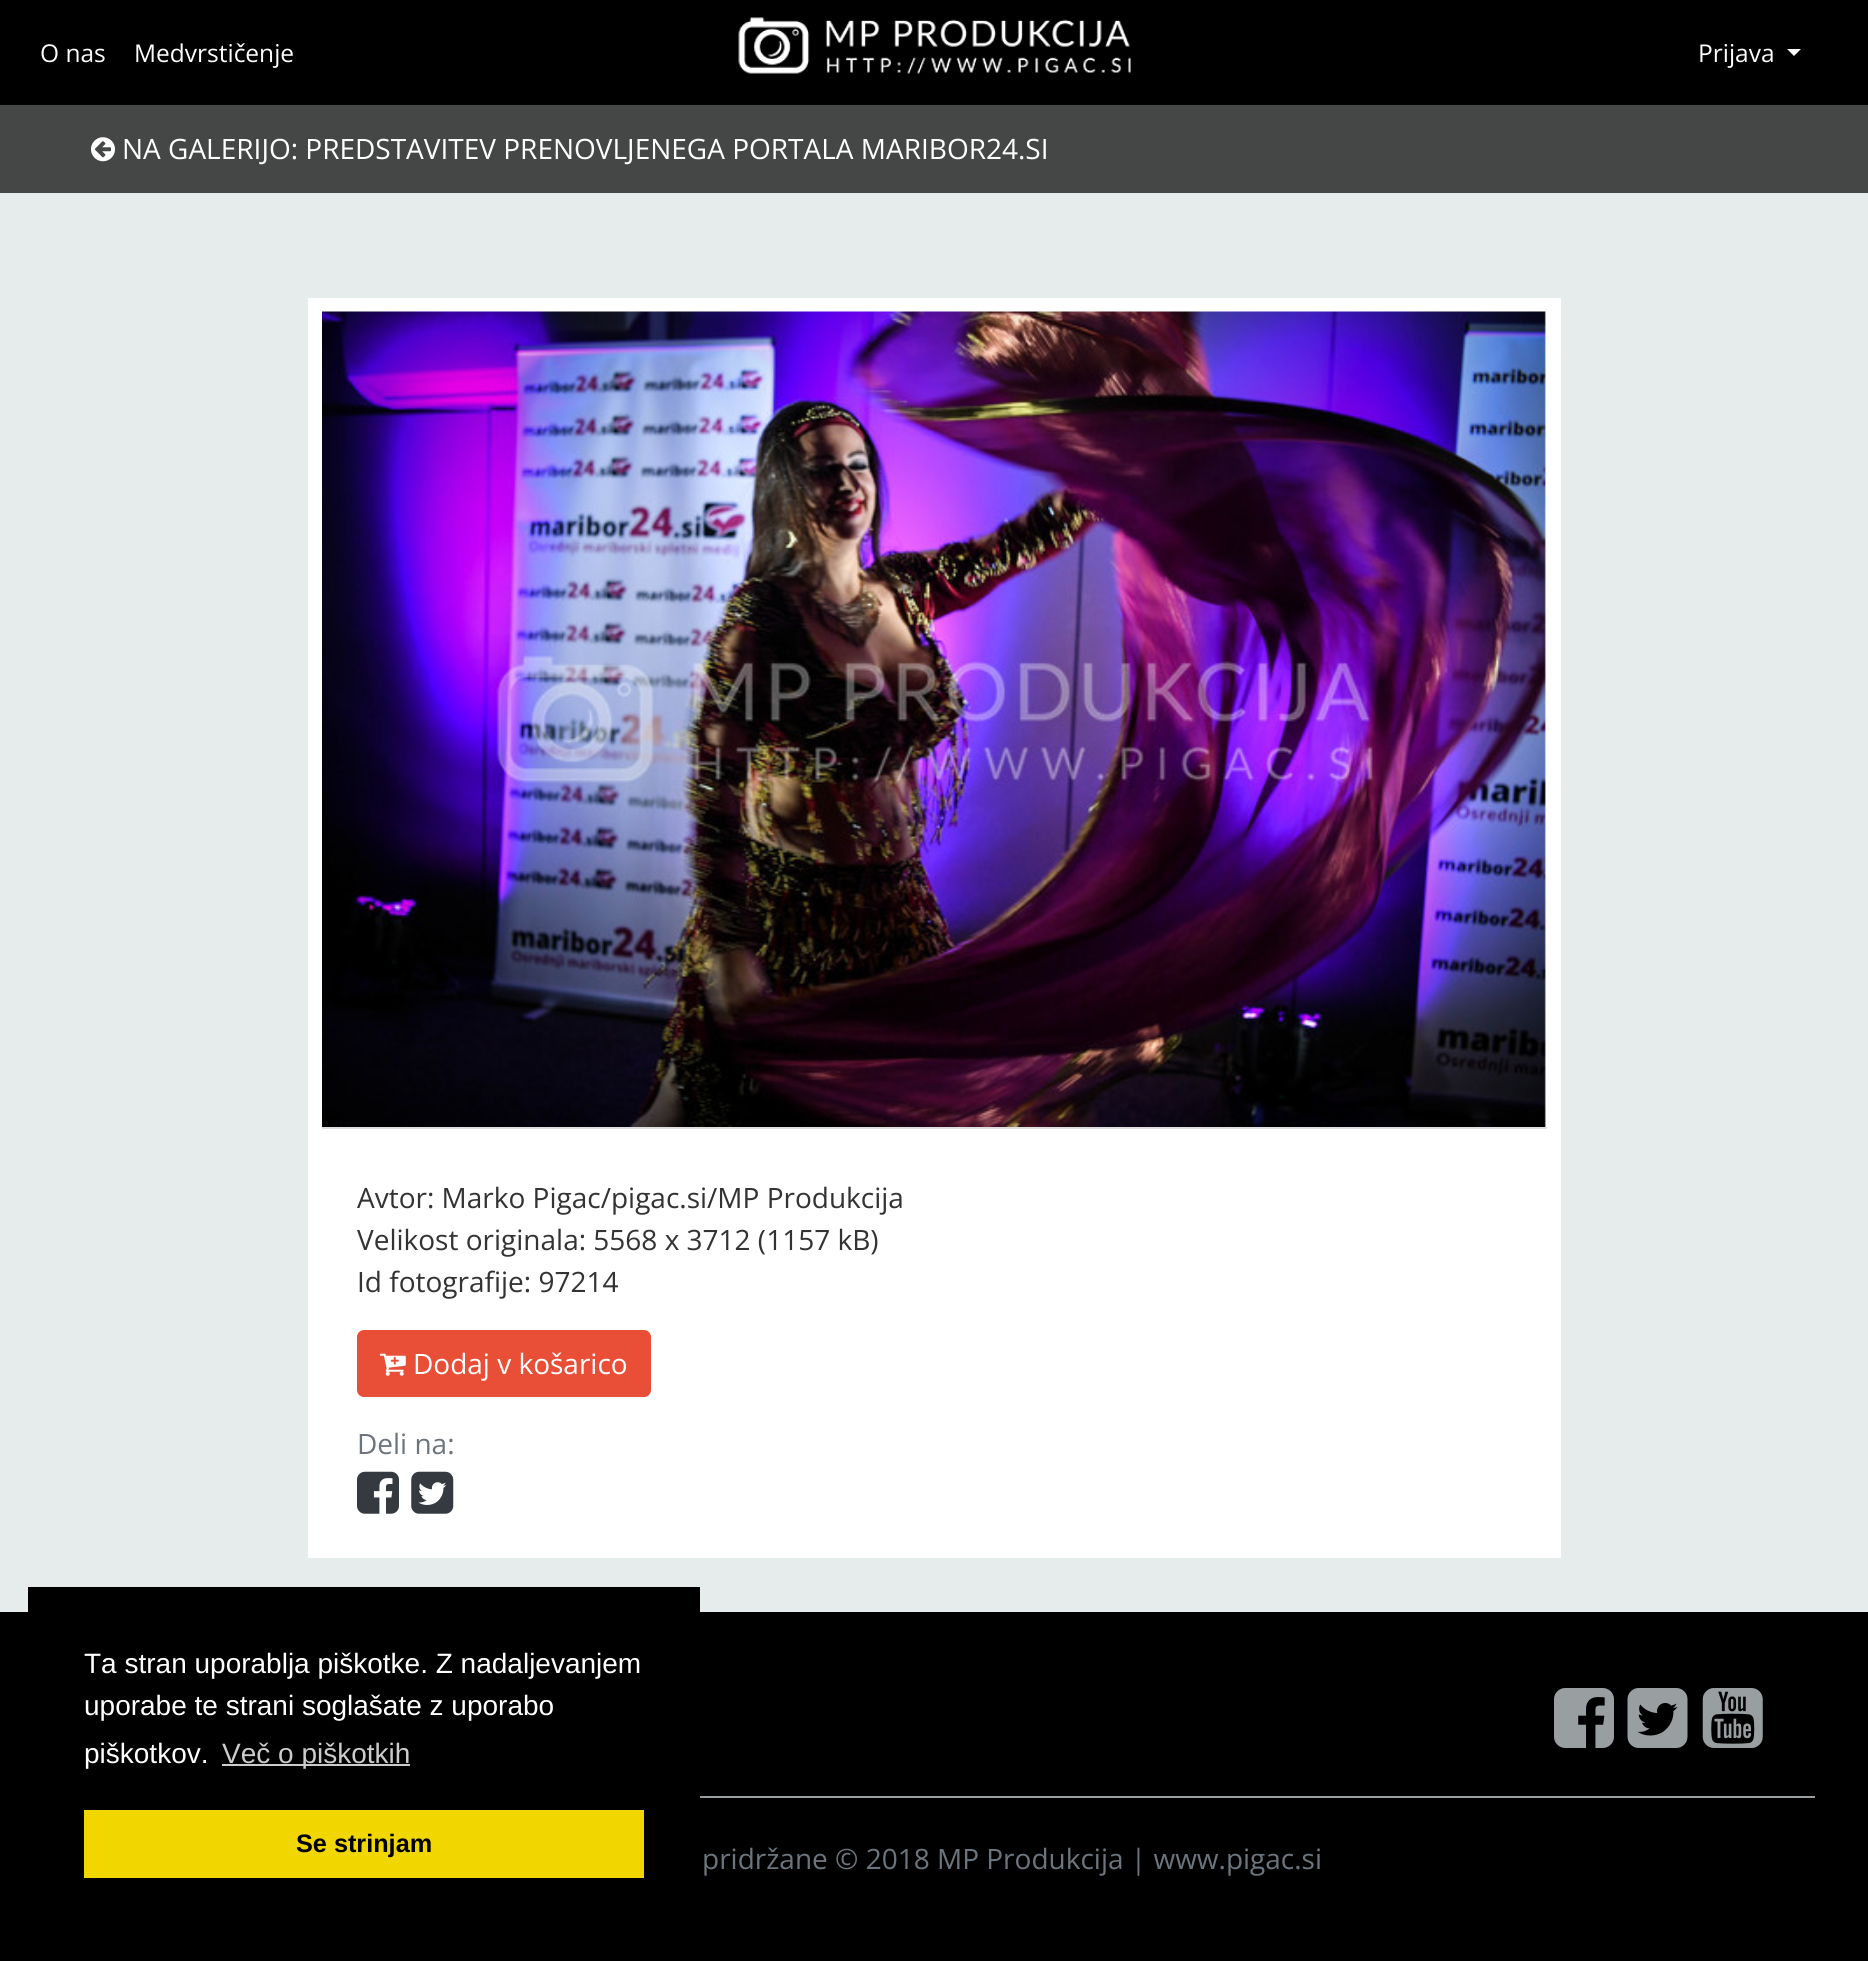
#include <cairo/cairo.h>
#include <math.h>
#include <stddef.h>

static cairo_t *cr;

static void use_color(int r, int g, int b) {
  cairo_set_source_rgb(cr, r / 255.0, g / 255.0, b / 255.0);
}

static void text(double x, double y, const char *s, const char *family, double size, int italic, int bold, int r, int g, int b) {
  cairo_select_font_face(cr, family, italic ? CAIRO_FONT_SLANT_ITALIC : CAIRO_FONT_SLANT_NORMAL,
    bold ? CAIRO_FONT_WEIGHT_BOLD : CAIRO_FONT_WEIGHT_NORMAL);
  cairo_set_font_size(cr, size);
  use_color(r, g, b);
  cairo_move_to(cr, x, y);
  cairo_show_text(cr, s);
}

static void box(double x, double y, double w, double h, int r, int g, int b) {
  use_color(r, g, b);
  cairo_rectangle(cr, x, y, w, h);
  cairo_fill(cr);
}

static void round_rect(double x, double y, double w, double h, double r) {
  cairo_new_sub_path(cr);
  cairo_arc(cr, x + w - r, y + h - r, r, 0, M_PI / 2);
  cairo_arc(cr, x + r, y + h - r, r, M_PI / 2, M_PI);
  cairo_arc(cr, x + r, y + r, r, M_PI, 1.5 * M_PI);
  cairo_arc(cr, x + w - r, y + r, r, 1.5 * M_PI, 2 * M_PI);
  cairo_close_path(cr);
}

static void picture(const char *path, double x, double y, double w, double h) {
  cairo_surface_t *image = cairo_image_surface_create_from_png(path);
  cairo_save(cr);
  cairo_set_source_surface(cr, image, x, y);
  cairo_rectangle(cr, x, y, w, h);
  cairo_fill(cr);
  cairo_restore(cr);
  cairo_surface_destroy(image);
}

static void draw(void) {
  use_color(230, 235, 235);
  cairo_paint(cr);
  box(0, 0, 1868, 105, 0, 0, 0);
  picture("img_01.png", 738, 17, 393, 57);
  use_color(255, 255, 255);
  cairo_new_path(cr);
  cairo_move_to(cr, 1787, 49);
  cairo_line_to(cr, 1801, 49);
  cairo_line_to(cr, 1794, 56);
  cairo_close_path(cr);
  cairo_fill(cr);
  box(0, 105, 1868, 88, 69, 71, 71);
  picture("img_02.png", 91, 137, 24, 25);
  box(308, 298, 1253, 1260, 255, 255, 255);
  picture("img_03.png", 322, 311, 1225, 816);
  box(322, 1127, 1225, 2, 223, 223, 223);
  use_color(233, 79, 55);
  round_rect(358, 1331, 292, 65, 6);
  cairo_fill_preserve(cr);
  cairo_stroke(cr);
  picture("img_04.png", 379, 1353, 27, 23);
  picture("img_05.png", 357, 1471, 42, 43);
  picture("img_06.png", 411, 1471, 43, 43);
  box(28, 1587, 672, 25, 0, 0, 0);
  box(0, 1612, 1868, 349, 0, 0, 0);
  box(222, 1764, 188, 2, 204, 204, 204);
  box(84, 1810, 560, 68, 241, 214, 0);
  picture("img_07.png", 1554, 1688, 60, 60);
  picture("img_08.png", 1627, 1688, 61, 60);
  picture("img_09.png", 1702, 1688, 61, 60);
  box(700, 1796, 1115, 2, 153, 158, 160);
  text(40, 62, "O nas", "Open Sans", 24.5, 0, 0, 255, 255, 255);
  text(134, 62, "Medvrstičenje", "Open Sans", 24.5, 0, 0, 255, 255, 255);
  text(1698, 62, "Prijava", "Open Sans", 24.5, 0, 0, 255, 255, 255);
  text(122, 159, "NA GALERIJO: PREDSTAVITEV PRENOVLJENEGA PORTALA MARIBOR24.SI", "Open Sans", 28, 0, 0, 255, 255, 255);
  text(357, 1208, "Avtor: Marko Pigac/pigac.si/MP Produkcija", "Open Sans", 28, 0, 0, 51, 51, 51);
  text(357, 1250, "Velikost originala: 5568 x 3712 (1157 kB)", "Open Sans", 28, 0, 0, 51, 51, 51);
  text(357, 1292, "Id fotografije: 97214", "Open Sans", 28, 0, 0, 51, 51, 51);
  text(413, 1374, "Dodaj v košarico", "Open Sans", 28, 0, 0, 255, 255, 255);
  text(357, 1454, "Deli na:", "Open Sans", 28, 0, 0, 108, 117, 125);
  text(84, 1673, "Ta stran uporablja piškotke. Z nadaljevanjem", "Liberation Sans", 28, 0, 0, 255, 255, 255);
  text(84, 1715, "uporabe te strani soglašate z uporabo", "Liberation Sans", 28, 0, 0, 255, 255, 255);
  text(84, 1763, "piškotkov.", "Liberation Sans", 28, 0, 0, 255, 255, 255);
  text(222, 1763, "Več o piškotkih", "Liberation Sans", 28, 0, 0, 204, 204, 204);
  text(296, 1852, "Se strinjam", "Liberation Sans", 25.25, 0, 1, 0, 0, 0);
  text(702, 1869, "pridržane © 2018 MP Produkcija | www.pigac.si", "Open Sans", 28, 0, 0, 108, 117, 125);
}

int main(void) {
  cairo_surface_t *surface = cairo_image_surface_create(CAIRO_FORMAT_RGB24, 1868, 1961);
  cr = cairo_create(surface);
  cairo_font_options_t *options = cairo_font_options_create();
  cairo_font_options_set_hint_metrics(options, CAIRO_HINT_METRICS_OFF);
  cairo_font_options_set_hint_style(options, CAIRO_HINT_STYLE_NONE);
  cairo_set_font_options(cr, options);
  cairo_set_miter_limit(cr, 4);
  draw();
  cairo_surface_write_to_png(surface, "out.png");
  cairo_font_options_destroy(options);
  cairo_destroy(cr);
  cairo_surface_destroy(surface);
  return 0;
}
